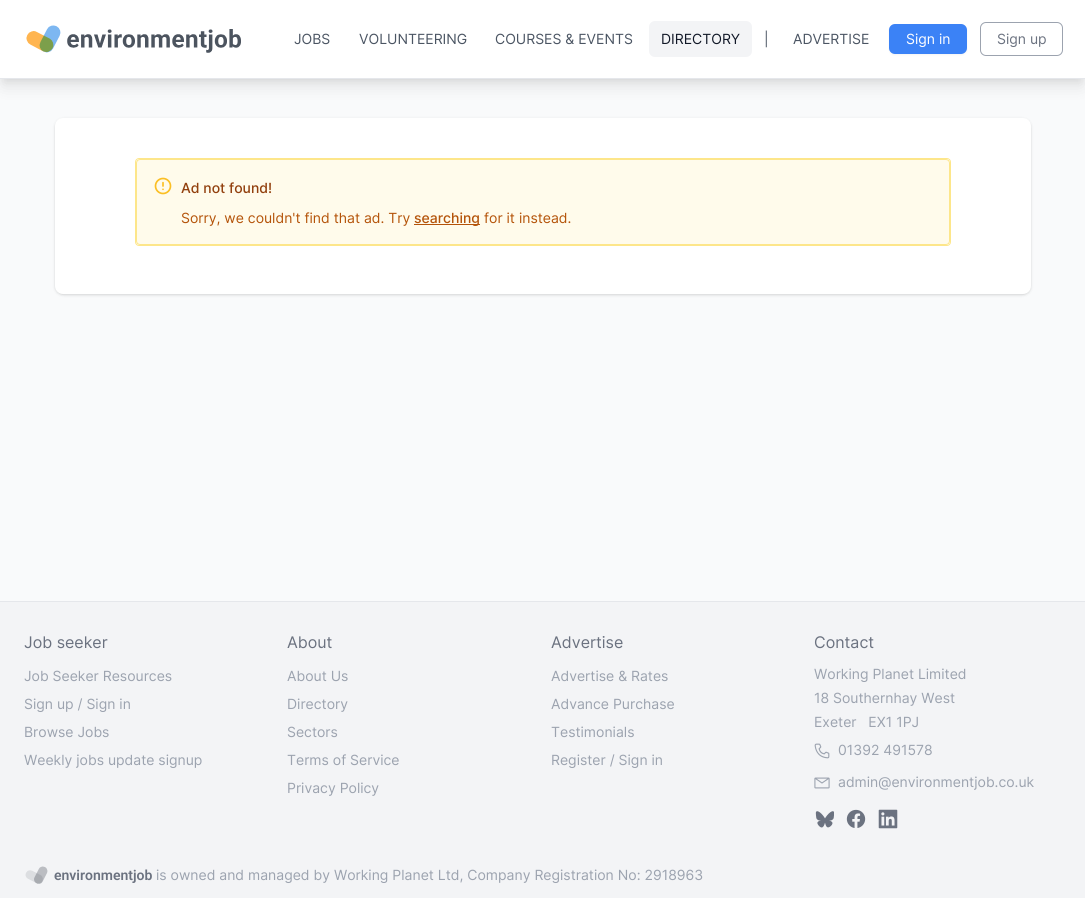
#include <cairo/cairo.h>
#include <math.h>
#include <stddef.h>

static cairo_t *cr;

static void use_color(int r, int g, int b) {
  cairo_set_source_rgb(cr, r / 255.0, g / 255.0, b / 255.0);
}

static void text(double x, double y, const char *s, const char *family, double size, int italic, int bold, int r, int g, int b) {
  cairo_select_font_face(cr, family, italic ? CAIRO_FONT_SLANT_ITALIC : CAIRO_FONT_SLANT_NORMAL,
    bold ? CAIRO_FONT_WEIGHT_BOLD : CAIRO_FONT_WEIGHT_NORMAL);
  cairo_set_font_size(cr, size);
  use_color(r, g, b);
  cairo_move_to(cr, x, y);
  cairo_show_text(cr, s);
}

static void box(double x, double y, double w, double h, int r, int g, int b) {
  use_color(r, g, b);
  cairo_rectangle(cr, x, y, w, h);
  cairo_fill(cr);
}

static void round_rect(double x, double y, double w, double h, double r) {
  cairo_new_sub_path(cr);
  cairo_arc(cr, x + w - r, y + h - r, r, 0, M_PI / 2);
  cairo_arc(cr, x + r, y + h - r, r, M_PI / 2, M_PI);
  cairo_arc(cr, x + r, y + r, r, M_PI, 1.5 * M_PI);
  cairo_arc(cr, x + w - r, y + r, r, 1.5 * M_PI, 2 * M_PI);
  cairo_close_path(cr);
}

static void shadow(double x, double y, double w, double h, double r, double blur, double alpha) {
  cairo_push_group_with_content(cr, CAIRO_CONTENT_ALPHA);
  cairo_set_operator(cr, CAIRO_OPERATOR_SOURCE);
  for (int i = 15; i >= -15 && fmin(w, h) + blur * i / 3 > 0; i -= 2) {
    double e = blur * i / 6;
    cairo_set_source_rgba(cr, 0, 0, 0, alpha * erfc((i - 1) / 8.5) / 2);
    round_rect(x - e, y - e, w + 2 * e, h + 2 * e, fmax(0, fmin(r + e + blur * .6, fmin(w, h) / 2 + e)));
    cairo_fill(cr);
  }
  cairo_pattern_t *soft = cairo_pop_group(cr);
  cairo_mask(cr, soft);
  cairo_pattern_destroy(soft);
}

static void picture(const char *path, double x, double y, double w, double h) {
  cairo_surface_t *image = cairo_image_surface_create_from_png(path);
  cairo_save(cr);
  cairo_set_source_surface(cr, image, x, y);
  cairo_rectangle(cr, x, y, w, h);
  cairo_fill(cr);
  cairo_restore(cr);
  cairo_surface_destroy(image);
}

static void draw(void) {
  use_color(249, 250, 251);
  cairo_paint(cr);
  use_color(0, 0, 0);
  shadow(2, 6, 1081, 75, 0, 3, 0.05);
  shadow(3, 13, 1079, 73, 0, 7.5, 0.1);
  box(0, 0, 1085, 78, 255, 255, 255);
  box(0, 78, 1085, 1, 229, 231, 235);
  picture("img_01.png", 26, 25, 215, 28);
  use_color(243, 244, 246);
  round_rect(649, 21, 103, 36, 6);
  cairo_fill(cr);
  use_color(0, 0, 0);
  shadow(889, 25, 78, 30, 6, 1, 0.05);
  use_color(59, 130, 246);
  round_rect(889, 24, 78, 30, 6);
  cairo_fill(cr);
  round_rect(980.5, 22.5, 82, 33, 5.5);
  use_color(156, 163, 175);
  cairo_set_line_width(cr, 1);
  cairo_stroke(cr);
  use_color(0, 0, 0);
  shadow(55, 119, 976, 176, 8, 1, 0.06);
  shadow(55, 119, 976, 176, 8, 1.5, 0.1);
  use_color(255, 255, 255);
  round_rect(55, 118, 976, 176, 8);
  cairo_fill(cr);
  round_rect(135.5, 158.5, 815, 87, 3.5);
  use_color(253, 230, 138);
  cairo_stroke(cr);
  use_color(255, 251, 235);
  round_rect(136.5, 159.5, 813, 85, 3.5);
  cairo_fill_preserve(cr);
  use_color(253, 230, 138);
  cairo_stroke(cr);
  picture("img_02.png", 154, 177, 18, 18);
  box(414, 224, 66, 1, 180, 83, 9);
  box(0, 602, 1085, 296, 243, 244, 246);
  box(0, 601, 1085, 1, 229, 231, 235);
  picture("img_03.png", 814, 743, 16, 16);
  picture("img_04.png", 814, 777, 16, 12);
  picture("img_05.png", 815, 811, 19, 17);
  picture("img_06.png", 846, 809, 20, 19);
  picture("img_07.png", 878, 809, 20, 20);
  picture("img_08.png", 25, 866, 23, 18);
  text(294, 44, "JOBS", "Inter", 14, 0, 0, 75, 85, 99);
  text(359, 44, "VOLUNTEERING", "Inter", 14, 0, 0, 75, 85, 99);
  text(495, 44, "COURSES & EVENTS", "Inter", 14, 0, 0, 75, 85, 99);
  text(661, 44, "DIRECTORY", "Inter", 14, 0, 0, 17, 24, 39);
  text(764, 44, "|", "Inter", 14, 0, 0, 75, 85, 99);
  text(793, 44, "ADVERTISE", "Inter", 14, 0, 0, 75, 85, 99);
  text(906, 44, "Sign in", "Inter", 14, 0, 0, 255, 255, 255);
  text(997, 44, "Sign up", "Inter", 14, 0, 0, 107, 114, 128);
  text(181, 193, "Ad not found!", "Inter Medium", 14, 0, 0, 146, 64, 14);
  text(181, 223, "Sorry, we couldn't find that ad. Try", "Inter", 14, 0, 0, 180, 83, 9);
  text(414, 223, "searching", "Inter Medium", 14, 0, 0, 180, 83, 9);
  text(484, 223, "for it instead.", "Inter", 14, 0, 0, 180, 83, 9);
  text(24, 648, "Job seeker", "Inter", 16, 0, 0, 107, 114, 128);
  text(24, 681, "Job Seeker Resources", "Inter", 14, 0, 0, 156, 163, 175);
  text(24, 709, "Sign up / Sign in", "Inter", 14, 0, 0, 156, 163, 175);
  text(24, 737, "Browse Jobs", "Inter", 14, 0, 0, 156, 163, 175);
  text(24, 765, "Weekly jobs update signup", "Inter", 14, 0, 0, 156, 163, 175);
  text(287, 648, "About", "Inter", 16, 0, 0, 107, 114, 128);
  text(287, 681, "About Us", "Inter", 14, 0, 0, 156, 163, 175);
  text(287, 709, "Directory", "Inter", 14, 0, 0, 156, 163, 175);
  text(287, 737, "Sectors", "Inter", 14, 0, 0, 156, 163, 175);
  text(287, 765, "Terms of Service", "Inter", 14, 0, 0, 156, 163, 175);
  text(287, 793, "Privacy Policy", "Inter", 14, 0, 0, 156, 163, 175);
  text(551, 648, "Advertise", "Inter", 16, 0, 0, 107, 114, 128);
  text(551, 681, "Advertise & Rates", "Inter", 14, 0, 0, 156, 163, 175);
  text(551, 709, "Advance Purchase", "Inter", 14, 0, 0, 156, 163, 175);
  text(551, 737, "Testimonials", "Inter", 14, 0, 0, 156, 163, 175);
  text(551, 765, "Register / Sign in", "Inter", 14, 0, 0, 156, 163, 175);
  text(814, 648, "Contact", "Inter", 16, 0, 0, 107, 114, 128);
  text(814, 679, "Working Planet Limited", "Inter", 14, 0, 0, 156, 163, 175);
  text(814, 703, "18 Southernhay West", "Inter", 14, 0, 0, 156, 163, 175);
  text(814, 727, "Exeter   EX1 1PJ", "Inter", 14, 0, 0, 156, 163, 175);
  text(838, 755, "01392 491578", "Inter", 14, 0, 0, 156, 163, 175);
  text(838, 787, "admin@environmentjob.co.uk", "Inter", 14, 0, 0, 156, 163, 175);
  text(54, 880, "environmentjob", "Roboto SemiBold", 14, 0, 0, 107, 114, 128);
  text(156, 880, "is owned and managed by Working Planet Ltd, Company Registration No: 2918963", "Inter", 14, 0, 0, 156, 163, 175);
}

int main(void) {
  cairo_surface_t *surface = cairo_image_surface_create(CAIRO_FORMAT_RGB24, 1085, 898);
  cr = cairo_create(surface);
  cairo_font_options_t *options = cairo_font_options_create();
  cairo_font_options_set_hint_metrics(options, CAIRO_HINT_METRICS_OFF);
  cairo_font_options_set_hint_style(options, CAIRO_HINT_STYLE_NONE);
  cairo_set_font_options(cr, options);
  cairo_set_miter_limit(cr, 4);
  draw();
  cairo_surface_write_to_png(surface, "out.png");
  cairo_font_options_destroy(options);
  cairo_destroy(cr);
  cairo_surface_destroy(surface);
  return 0;
}
